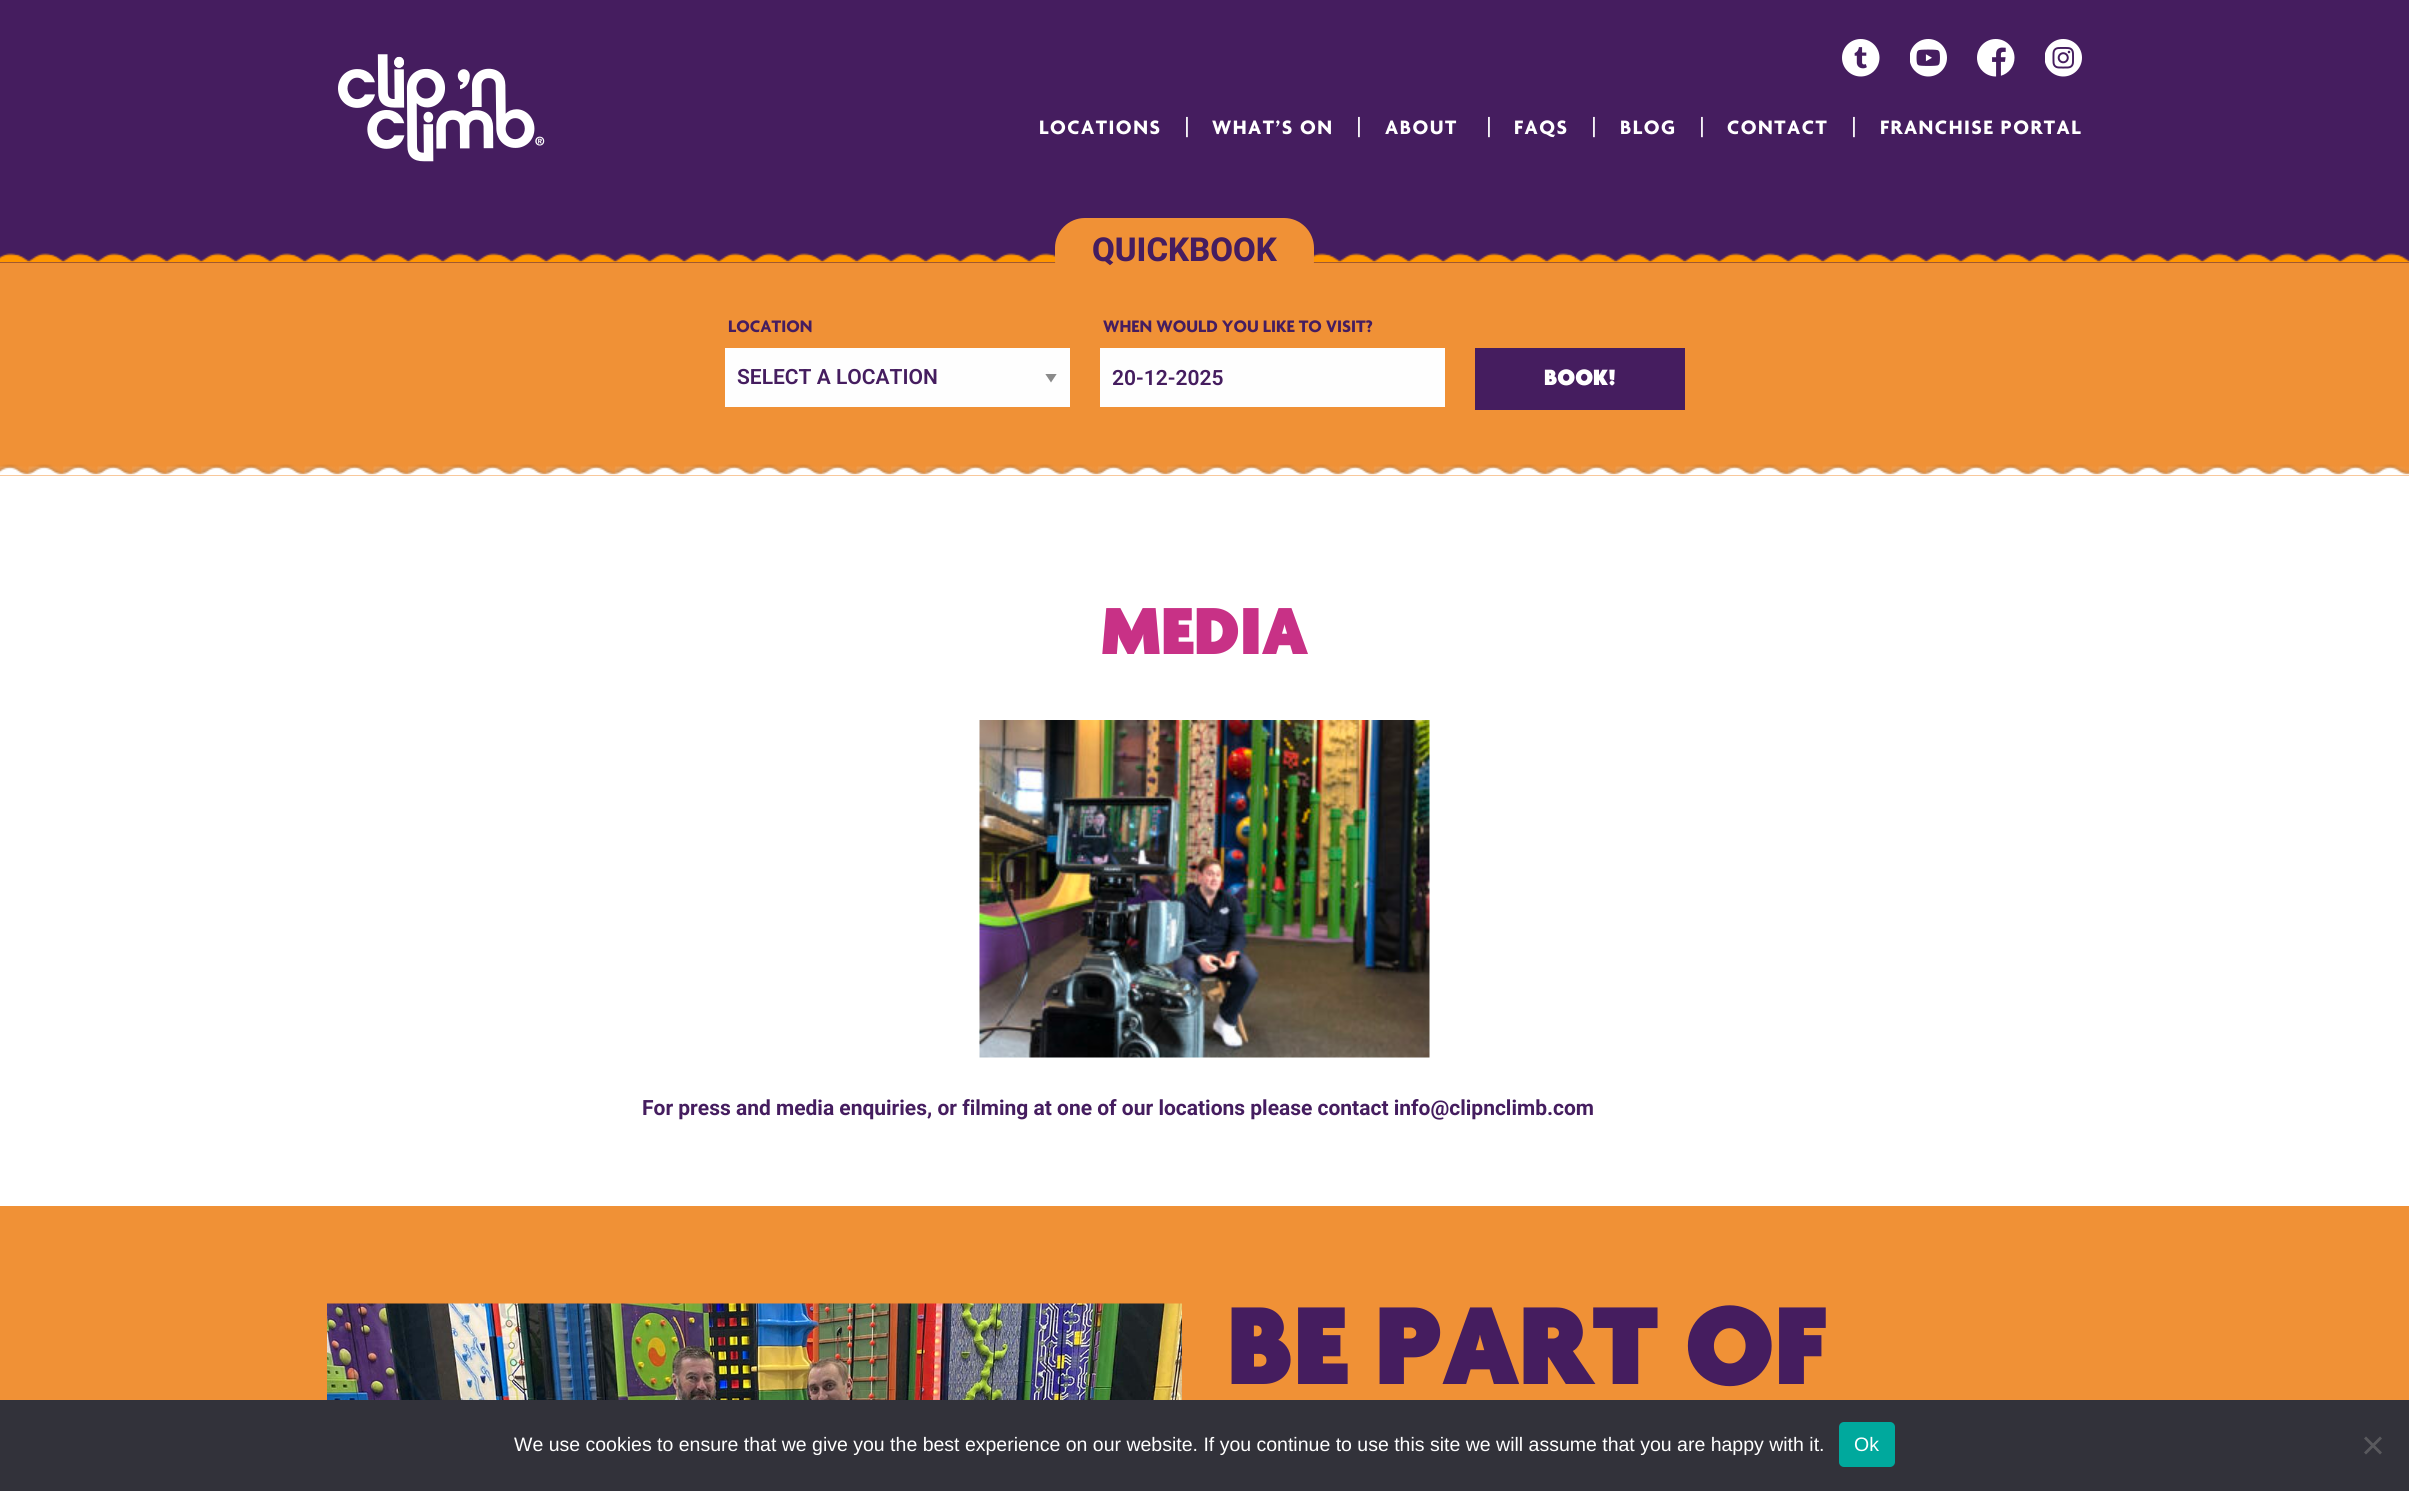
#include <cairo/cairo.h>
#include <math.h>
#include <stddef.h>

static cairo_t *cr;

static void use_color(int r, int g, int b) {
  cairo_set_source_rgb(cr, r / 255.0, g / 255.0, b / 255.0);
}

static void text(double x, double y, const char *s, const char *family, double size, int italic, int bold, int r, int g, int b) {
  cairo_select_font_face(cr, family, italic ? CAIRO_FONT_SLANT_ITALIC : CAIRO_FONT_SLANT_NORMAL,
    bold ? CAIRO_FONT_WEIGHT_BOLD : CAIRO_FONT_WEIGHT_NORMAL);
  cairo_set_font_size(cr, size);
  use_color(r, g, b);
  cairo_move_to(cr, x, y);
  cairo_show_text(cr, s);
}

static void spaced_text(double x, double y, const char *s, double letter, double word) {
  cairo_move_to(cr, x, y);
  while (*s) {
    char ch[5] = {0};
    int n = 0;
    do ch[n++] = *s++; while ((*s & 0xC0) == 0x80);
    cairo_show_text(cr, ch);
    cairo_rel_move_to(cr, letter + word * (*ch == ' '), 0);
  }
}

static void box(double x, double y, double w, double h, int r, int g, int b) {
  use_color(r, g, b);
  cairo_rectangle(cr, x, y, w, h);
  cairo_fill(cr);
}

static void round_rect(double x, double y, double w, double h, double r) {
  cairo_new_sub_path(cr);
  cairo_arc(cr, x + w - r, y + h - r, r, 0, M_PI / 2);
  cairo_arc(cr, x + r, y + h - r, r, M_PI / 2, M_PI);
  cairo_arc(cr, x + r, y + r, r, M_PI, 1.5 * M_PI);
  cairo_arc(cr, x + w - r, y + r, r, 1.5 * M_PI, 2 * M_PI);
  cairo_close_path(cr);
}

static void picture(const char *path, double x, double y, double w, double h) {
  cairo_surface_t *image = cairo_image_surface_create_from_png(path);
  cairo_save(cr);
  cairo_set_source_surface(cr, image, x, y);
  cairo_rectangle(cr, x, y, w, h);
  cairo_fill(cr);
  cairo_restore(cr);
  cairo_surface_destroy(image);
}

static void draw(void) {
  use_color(255, 255, 255);
  cairo_paint(cr);
  box(0, 0, 2409, 263, 69, 29, 95);
  picture("img_01.png", 338, 54, 207, 108);
  picture("img_02.png", 1842, 39, 38, 38);
  picture("img_03.png", 1910, 39, 37, 38);
  picture("img_04.png", 1977, 39, 38, 38);
  picture("img_05.png", 2045, 39, 37, 38);
  box(0, 263, 2409, 213, 240, 145, 54);
  picture("img_06.png", 0, 253, 2409, 10);
  round_rect(1055, 218, 259, 72, 30);
  cairo_fill(cr);
  box(725, 348, 345, 59, 254, 254, 254);
  cairo_save(cr);
  cairo_rectangle(cr, 1044, 374, 14, 9);
  cairo_clip(cr);
  use_color(138, 138, 138);
  cairo_new_path(cr);
  cairo_move_to(cr, 1045, 373.5);
  cairo_line_to(cr, 1057, 373.5);
  cairo_line_to(cr, 1051, 382.5);
  cairo_close_path(cr);
  cairo_fill(cr);
  cairo_restore(cr);
  box(1100, 348, 345, 59, 254, 254, 254);
  box(1475, 348, 210, 62, 69, 29, 95);
  picture("img_07.png", 0, 464, 2409, 12);
  picture("img_08.png", 979, 720, 451, 338);
  box(0, 1206, 2409, 194, 240, 145, 54);
  picture("img_09.png", 327, 1303, 855, 97);
  box(0, 1400, 2409, 91, 50, 50, 58);
  use_color(0, 169, 157);
  round_rect(1839, 1422, 56, 45, 5);
  cairo_fill(cr);
  use_color(89, 89, 93);
  cairo_new_path(cr);
  cairo_move_to(cr, 2380, 1436.5);
  cairo_line_to(cr, 2382, 1438.5);
  cairo_line_to(cr, 2366, 1454.5);
  cairo_line_to(cr, 2364, 1452.5);
  cairo_close_path(cr);
  cairo_fill(cr);
  cairo_new_path(cr);
  cairo_move_to(cr, 2364, 1438.5);
  cairo_line_to(cr, 2366, 1436.5);
  cairo_line_to(cr, 2382, 1452.5);
  cairo_line_to(cr, 2380, 1454.5);
  cairo_close_path(cr);
  cairo_fill(cr);
  cairo_select_font_face(cr, "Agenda", CAIRO_FONT_SLANT_NORMAL, CAIRO_FONT_WEIGHT_BOLD);
  cairo_set_font_size(cr, 21);
  use_color(255, 255, 255);
  spaced_text(1039, 134, "LOCATIONS", 1.5, 0);
  text(1184, 134, "|", "Roboto", 24, 0, 0, 255, 255, 255);
  cairo_select_font_face(cr, "Agenda", CAIRO_FONT_SLANT_NORMAL, CAIRO_FONT_WEIGHT_BOLD);
  cairo_set_font_size(cr, 21);
  spaced_text(1212, 134, "WHAT’S ON", 1.5, 0);
  text(1356, 134, "|", "Roboto", 24, 0, 0, 255, 255, 255);
  cairo_select_font_face(cr, "Agenda", CAIRO_FONT_SLANT_NORMAL, CAIRO_FONT_WEIGHT_BOLD);
  cairo_set_font_size(cr, 21);
  spaced_text(1385, 134, "ABOUT", 1.5, 0);
  text(1486, 134, "|", "Roboto", 24, 0, 0, 255, 255, 255);
  cairo_select_font_face(cr, "Agenda", CAIRO_FONT_SLANT_NORMAL, CAIRO_FONT_WEIGHT_BOLD);
  cairo_set_font_size(cr, 21);
  spaced_text(1514, 134, "FAQS", 1.5, 0);
  text(1591, 134, "|", "Roboto", 24, 0, 0, 255, 255, 255);
  cairo_select_font_face(cr, "Agenda", CAIRO_FONT_SLANT_NORMAL, CAIRO_FONT_WEIGHT_BOLD);
  cairo_set_font_size(cr, 21);
  spaced_text(1620, 134, "BLOG", 1.5, 0);
  text(1699, 134, "|", "Roboto", 24, 0, 0, 255, 255, 255);
  cairo_select_font_face(cr, "Agenda", CAIRO_FONT_SLANT_NORMAL, CAIRO_FONT_WEIGHT_BOLD);
  cairo_set_font_size(cr, 21);
  spaced_text(1727, 134, "CONTACT", 1.5, 0);
  text(1851, 134, "|", "Roboto", 24, 0, 0, 255, 255, 255);
  cairo_select_font_face(cr, "Agenda", CAIRO_FONT_SLANT_NORMAL, CAIRO_FONT_WEIGHT_BOLD);
  cairo_set_font_size(cr, 21);
  spaced_text(1880, 134, "FRANCHISE PORTAL", 1.5, 0);
  text(1092, 261, "QUICKBOOK", "Roboto ExtraBold", 33, 0, 0, 69, 29, 95);
  text(728, 332, "LOCATION", "Agenda", 18, 0, 1, 69, 29, 95);
  text(737, 384, "SELECT A LOCATION", "Roboto SemiBold", 21, 0, 0, 69, 29, 95);
  text(1103, 332, "WHEN WOULD YOU LIKE TO VISIT?", "Agenda", 18, 0, 1, 69, 29, 95);
  text(1112, 385, "20-12-2025", "Roboto SemiBold", 21, 0, 0, 69, 29, 95);
  text(1544, 385, "BOOK!", "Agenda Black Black", 24, 0, 0, 255, 255, 255);
  text(1101, 654, "MEDIA", "Agenda Black Black", 72, 0, 0, 200, 49, 134);
  text(642, 1115, "For press and media enquiries, or filming at one of our locations please contact info@clipnclimb.com", "Roboto", 21, 0, 1, 69, 29, 95);
  text(1227, 1384, "BE PART OF", "Agenda Black Black", 120, 0, 0, 69, 29, 95);
  text(514, 1451, "We use cookies to ensure that we give you the best experience on our website. If you continue to use this site we will assume that you are happy with it.", "Liberation Sans", 19.5, 0, 0, 255, 255, 255);
  text(1854, 1451, "Ok", "Liberation Sans", 19.5, 0, 0, 255, 255, 255);
}

int main(void) {
  cairo_surface_t *surface = cairo_image_surface_create(CAIRO_FORMAT_RGB24, 2409, 1491);
  cr = cairo_create(surface);
  cairo_font_options_t *options = cairo_font_options_create();
  cairo_font_options_set_hint_metrics(options, CAIRO_HINT_METRICS_OFF);
  cairo_font_options_set_hint_style(options, CAIRO_HINT_STYLE_NONE);
  cairo_set_font_options(cr, options);
  cairo_set_miter_limit(cr, 4);
  draw();
  cairo_surface_write_to_png(surface, "out.png");
  cairo_font_options_destroy(options);
  cairo_destroy(cr);
  cairo_surface_destroy(surface);
  return 0;
}
